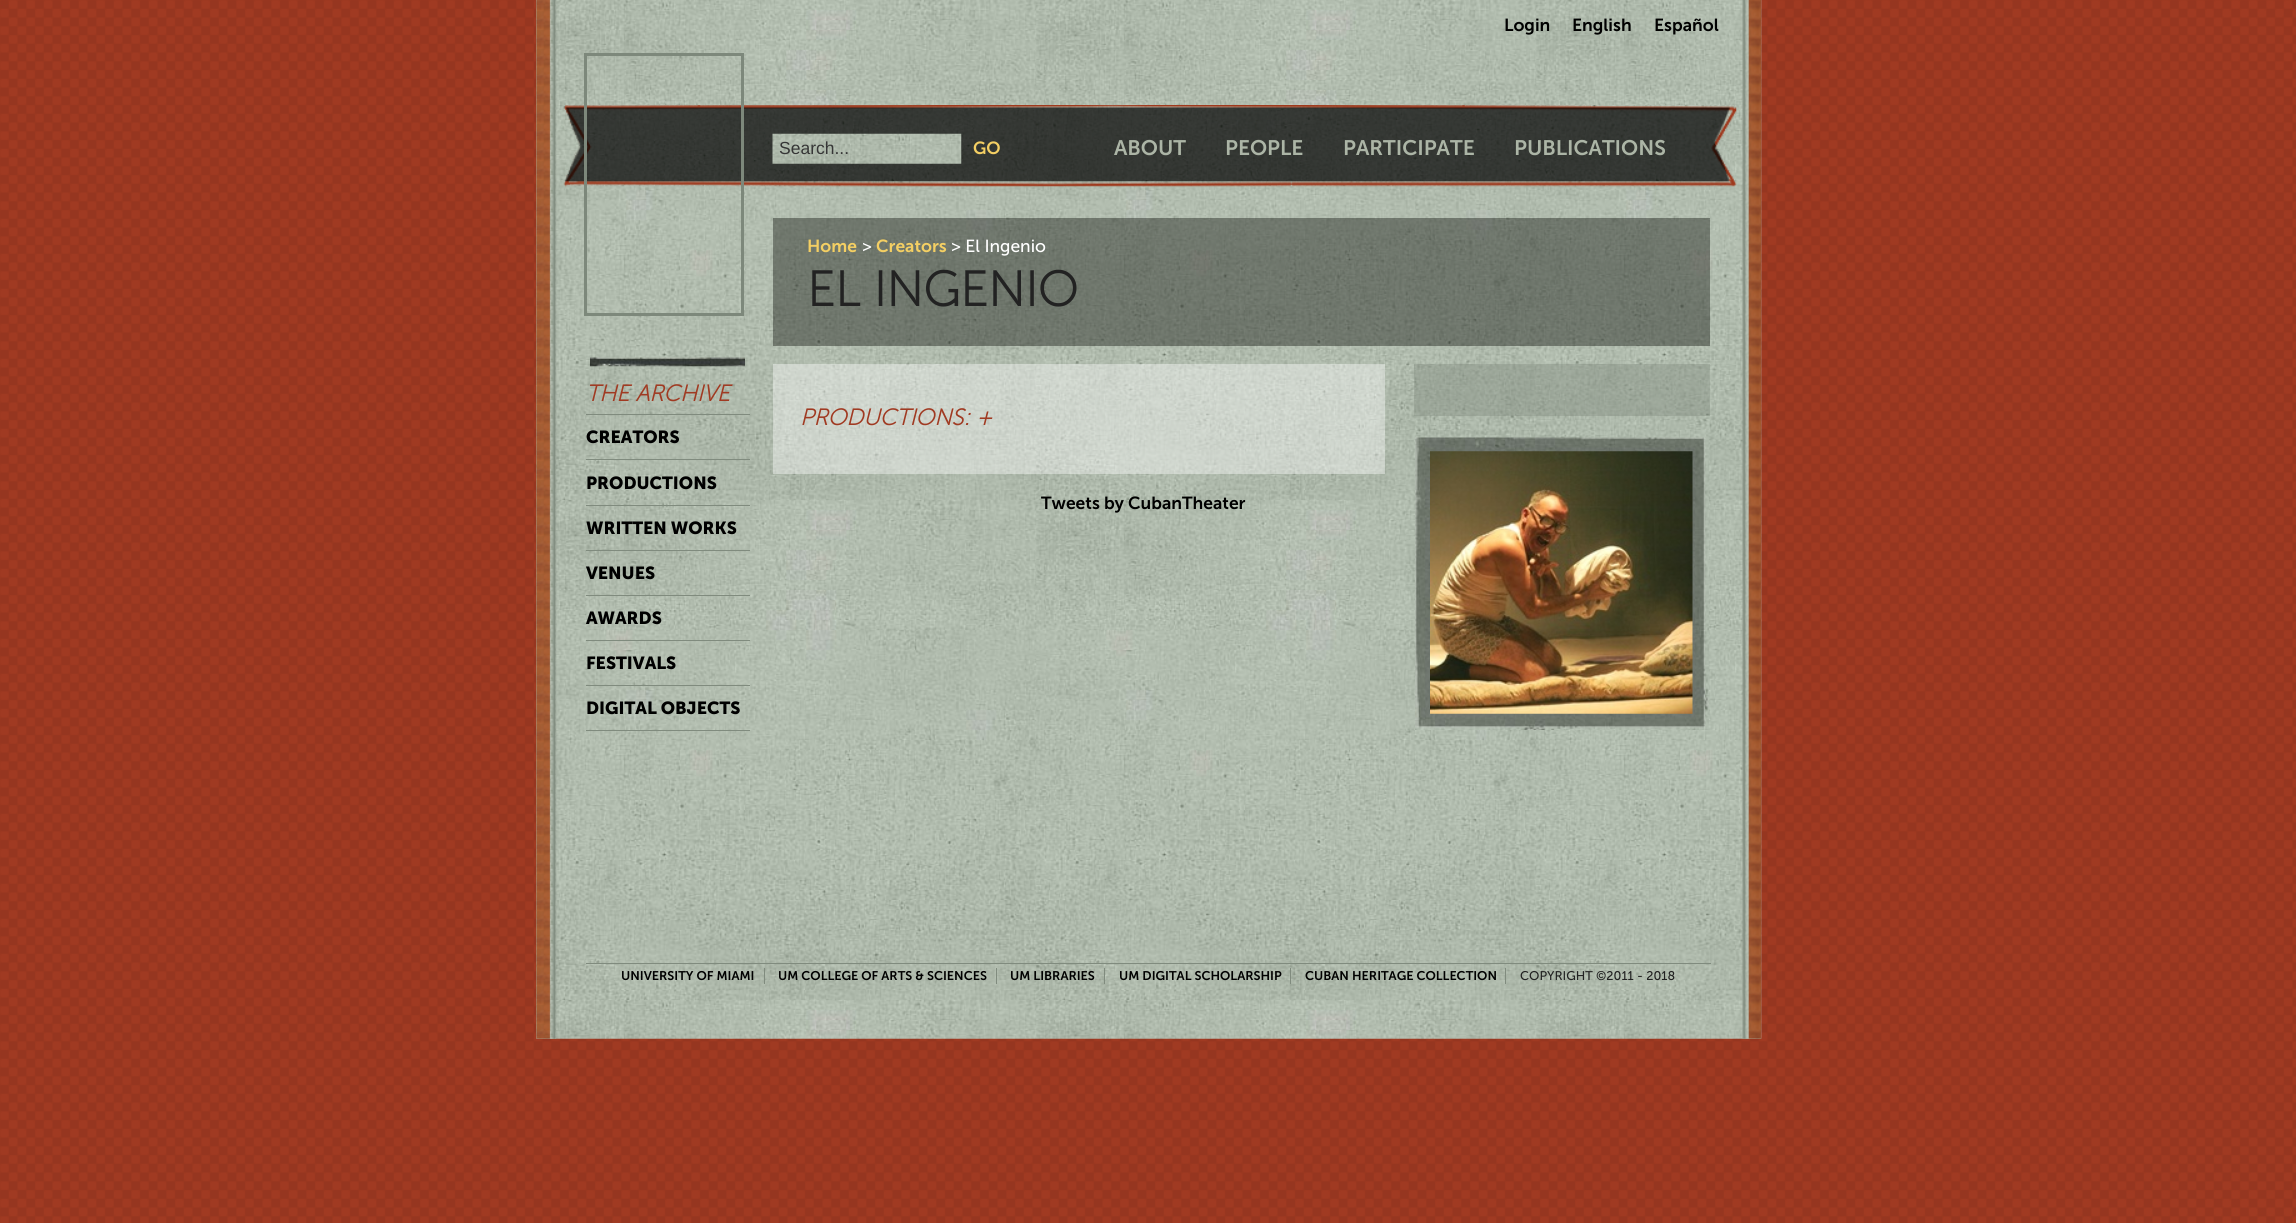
#include <cairo/cairo.h>
#include <math.h>
#include <stddef.h>

static cairo_t *cr;

static void use_color(int r, int g, int b) {
  cairo_set_source_rgb(cr, r / 255.0, g / 255.0, b / 255.0);
}

static void text(double x, double y, const char *s, const char *family, double size, int italic, int bold, int r, int g, int b) {
  cairo_select_font_face(cr, family, italic ? CAIRO_FONT_SLANT_ITALIC : CAIRO_FONT_SLANT_NORMAL,
    bold ? CAIRO_FONT_WEIGHT_BOLD : CAIRO_FONT_WEIGHT_NORMAL);
  cairo_set_font_size(cr, size);
  use_color(r, g, b);
  cairo_move_to(cr, x, y);
  cairo_show_text(cr, s);
}

static void box(double x, double y, double w, double h, int r, int g, int b) {
  use_color(r, g, b);
  cairo_rectangle(cr, x, y, w, h);
  cairo_fill(cr);
}

static void picture(const char *path, double x, double y, double w, double h) {
  cairo_surface_t *image = cairo_image_surface_create_from_png(path);
  cairo_save(cr);
  cairo_set_source_surface(cr, image, x, y);
  cairo_rectangle(cr, x, y, w, h);
  cairo_fill(cr);
  cairo_restore(cr);
  cairo_surface_destroy(image);
}

static void draw(void) {
  use_color(255, 255, 255);
  cairo_paint(cr);
  picture("img_01.png", 0, 0, 2296, 1223);
  picture("img_02.png", 536, 0, 1226, 1039);
  picture("img_03.png", 536, 0, 21, 1039);
  picture("img_04.png", 1742, 0, 19, 1039);
  picture("img_05.png", 561, 105, 1176, 82);
  cairo_rectangle(cr, 585.5, 54.5, 157, 260);
  use_color(125, 136, 123);
  cairo_set_line_width(cr, 3);
  cairo_stroke(cr);
  picture("img_06.png", 772, 133, 190, 31);
  cairo_set_source_rgba(cr, 0.051, 0.059, 0.047, 0.4);
  cairo_rectangle(cr, 773, 218, 937, 128);
  cairo_fill(cr);
  cairo_set_source_rgba(cr, 1, 1, 1, 0.4);
  cairo_rectangle(cr, 773, 364, 612, 110);
  cairo_fill(cr);
  cairo_set_source_rgba(cr, 0.502, 0.545, 0.494, 0.4);
  cairo_rectangle(cr, 1414, 364, 296, 52);
  cairo_fill(cr);
  picture("img_07.png", 1415, 437, 294, 293);
  picture("img_08.png", 1430, 451, 263, 263);
  picture("img_09.png", 590, 357, 155, 10);
  box(586, 414, 164, 1, 128, 139, 126);
  box(586, 459, 164, 1, 128, 139, 126);
  box(586, 505, 164, 1, 128, 139, 126);
  box(586, 550, 164, 1, 128, 139, 126);
  box(586, 595, 164, 1, 128, 139, 126);
  box(586, 640, 164, 1, 128, 139, 126);
  box(586, 685, 164, 1, 128, 139, 126);
  box(586, 730, 164, 1, 128, 139, 126);
  box(586, 963, 1125, 1, 128, 139, 126);
  box(764, 968, 1, 16, 128, 139, 126);
  box(996, 968, 1, 16, 128, 139, 126);
  box(1104, 968, 1, 16, 128, 139, 126);
  box(1290, 968, 1, 16, 128, 139, 126);
  box(1505, 968, 1, 16, 128, 139, 126);
  text(1504, 31, "Login", "Museo Sans SemiBold", 17.5, 0, 0, 0, 0, 0);
  text(1572, 31, "English", "Museo Sans SemiBold", 17.5, 0, 0, 0, 0, 0);
  text(1654, 31, "Español", "Museo Sans SemiBold", 17.5, 0, 0, 0, 0, 0);
  text(779, 154, "Search...", "Liberation Sans", 17.5, 0, 0, 54, 54, 54);
  text(973, 154, "GO", "Museo Sans SemiBold", 17.5, 0, 0, 244, 207, 99);
  text(1114, 155, "ABOUT", "Museo Sans SemiBold", 21, 0, 0, 172, 181, 166);
  text(1225, 155, "PEOPLE", "Museo Sans SemiBold", 21, 0, 0, 172, 181, 166);
  text(1343, 155, "PARTICIPATE", "Museo Sans SemiBold", 21, 0, 0, 172, 181, 166);
  text(1514, 155, "PUBLICATIONS", "Museo Sans SemiBold", 21, 0, 0, 172, 181, 166);
  text(807, 252, "Home", "Museo Sans SemiBold", 17.5, 0, 0, 244, 207, 99);
  text(862, 252, ">", "Museo Sans", 17.5, 0, 0, 255, 255, 255);
  text(876, 252, "Creators", "Museo Sans SemiBold", 17.5, 0, 0, 244, 207, 99);
  text(951, 252, "> El Ingenio", "Museo Sans", 17.5, 0, 0, 255, 255, 255);
  text(807, 306, "EL INGENIO", "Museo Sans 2", 49, 0, 1, 34, 34, 34);
  text(800, 425, "PRODUCTIONS: +", "Museo Sans", 22.75, 1, 1, 160, 58, 34);
  text(586, 401, "THE ARCHIVE", "Museo Sans", 22.75, 1, 1, 160, 58, 34);
  text(586, 443, "CREATORS", "Museo Sans", 17.5, 0, 1, 0, 0, 0);
  text(586, 489, "PRODUCTIONS", "Museo Sans", 17.5, 0, 1, 0, 0, 0);
  text(586, 534, "WRITTEN WORKS", "Museo Sans", 17.5, 0, 1, 0, 0, 0);
  text(586, 579, "VENUES", "Museo Sans", 17.5, 0, 1, 0, 0, 0);
  text(586, 624, "AWARDS", "Museo Sans", 17.5, 0, 1, 0, 0, 0);
  text(586, 669, "FESTIVALS", "Museo Sans", 17.5, 0, 1, 0, 0, 0);
  text(586, 714, "DIGITAL OBJECTS", "Museo Sans", 17.5, 0, 1, 0, 0, 0);
  text(1041, 509, "Tweets by CubanTheater", "Museo Sans SemiBold", 17.5, 0, 0, 0, 0, 0);
  text(621, 980, "UNIVERSITY OF MIAMI", "Museo Sans SemiBold", 12.6, 0, 0, 0, 0, 0);
  text(778, 980, "UM COLLEGE OF ARTS & SCIENCES", "Museo Sans SemiBold", 12.6, 0, 0, 0, 0, 0);
  text(1010, 980, "UM LIBRARIES", "Museo Sans SemiBold", 12.6, 0, 0, 0, 0, 0);
  text(1119, 980, "UM DIGITAL SCHOLARSHIP", "Museo Sans SemiBold", 12.6, 0, 0, 0, 0, 0);
  text(1305, 980, "CUBAN HERITAGE COLLECTION", "Museo Sans SemiBold", 12.6, 0, 0, 0, 0, 0);
  text(1520, 980, "COPYRIGHT ©2011 - 2018", "Museo Sans", 12.6, 0, 0, 34, 34, 34);
}

int main(void) {
  cairo_surface_t *surface = cairo_image_surface_create(CAIRO_FORMAT_RGB24, 2296, 1223);
  cr = cairo_create(surface);
  cairo_font_options_t *options = cairo_font_options_create();
  cairo_font_options_set_hint_metrics(options, CAIRO_HINT_METRICS_OFF);
  cairo_font_options_set_hint_style(options, CAIRO_HINT_STYLE_NONE);
  cairo_set_font_options(cr, options);
  cairo_set_miter_limit(cr, 4);
  draw();
  cairo_surface_write_to_png(surface, "out.png");
  cairo_font_options_destroy(options);
  cairo_destroy(cr);
  cairo_surface_destroy(surface);
  return 0;
}
